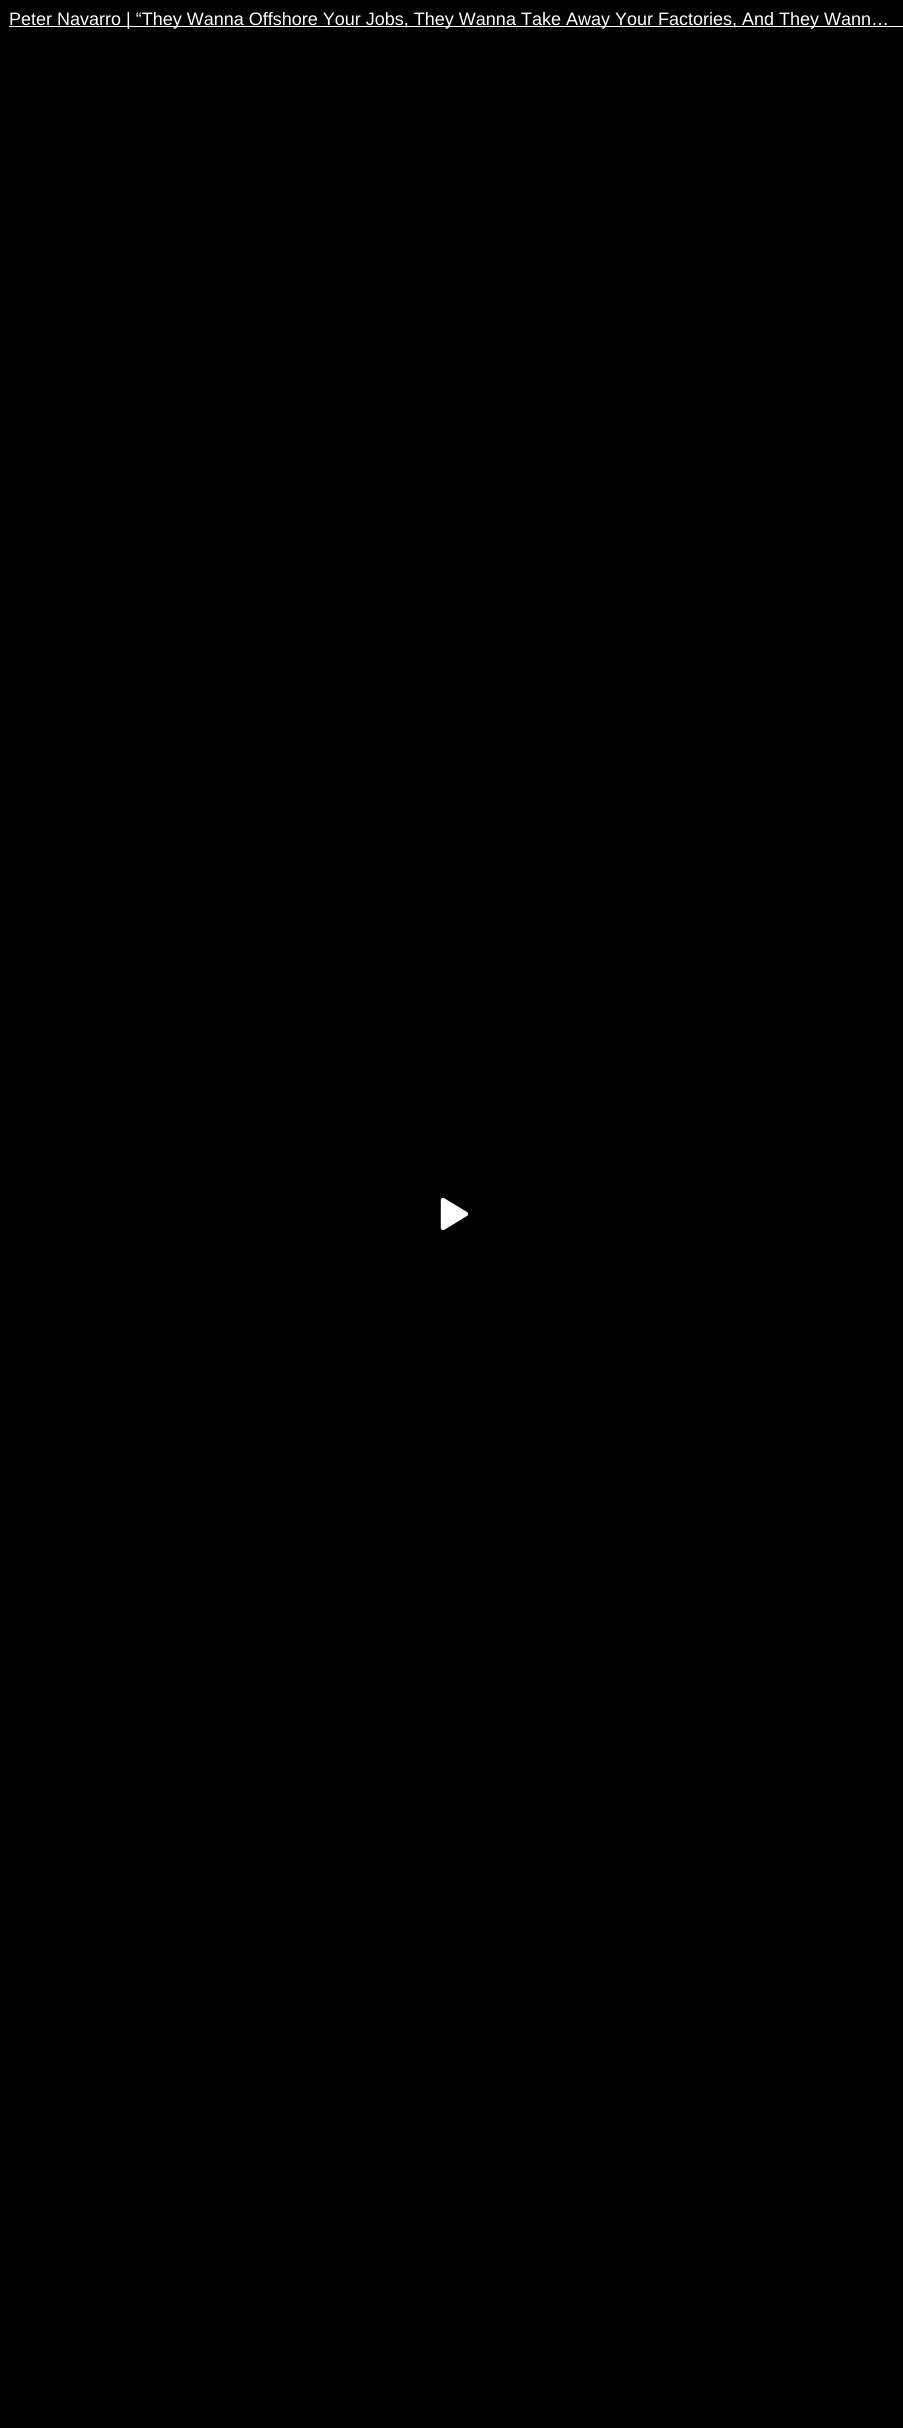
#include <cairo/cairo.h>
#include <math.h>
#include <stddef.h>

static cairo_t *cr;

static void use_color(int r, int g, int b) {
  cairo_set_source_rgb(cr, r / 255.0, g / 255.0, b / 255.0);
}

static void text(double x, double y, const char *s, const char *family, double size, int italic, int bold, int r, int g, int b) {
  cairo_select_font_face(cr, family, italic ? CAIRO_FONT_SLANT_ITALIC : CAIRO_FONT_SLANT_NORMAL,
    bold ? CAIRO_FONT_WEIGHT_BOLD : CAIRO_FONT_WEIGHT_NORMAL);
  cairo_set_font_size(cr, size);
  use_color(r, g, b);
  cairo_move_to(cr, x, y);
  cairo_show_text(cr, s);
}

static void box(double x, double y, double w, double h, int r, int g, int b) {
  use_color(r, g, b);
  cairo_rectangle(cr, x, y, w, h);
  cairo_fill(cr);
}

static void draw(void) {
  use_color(0, 0, 0);
  cairo_paint(cr);
  box(9, 26, 894, 1, 255, 255, 255);
  cairo_new_path(cr);
  cairo_move_to(cr, 466, 1214);
  cairo_line_to(cr, 443, 1200);
  cairo_line_to(cr, 443, 1228);
  cairo_close_path(cr);
  cairo_fill(cr);
  cairo_save(cr);
  cairo_rectangle(cr, 436, 1198, 32, 32);
  cairo_clip(cr);
  cairo_new_path(cr);
  cairo_move_to(cr, 466, 1214);
  cairo_line_to(cr, 443, 1200);
  cairo_line_to(cr, 443, 1228);
  cairo_close_path(cr);
  cairo_set_line_width(cr, 4.4);
  cairo_set_line_join(cr, CAIRO_LINE_JOIN_ROUND);
  cairo_stroke(cr);
  cairo_restore(cr);
  text(9, 25, "Peter Navarro | “They Wanna Offshore Your Jobs, They Wanna Take Away Your Factories, And They Wann…", "Liberation Sans", 18, 0, 0, 255, 255, 255);
}

int main(void) {
  cairo_surface_t *surface = cairo_image_surface_create(CAIRO_FORMAT_RGB24, 903, 2428);
  cr = cairo_create(surface);
  cairo_font_options_t *options = cairo_font_options_create();
  cairo_font_options_set_hint_metrics(options, CAIRO_HINT_METRICS_OFF);
  cairo_font_options_set_hint_style(options, CAIRO_HINT_STYLE_NONE);
  cairo_set_font_options(cr, options);
  cairo_set_miter_limit(cr, 4);
  draw();
  cairo_surface_write_to_png(surface, "out.png");
  cairo_font_options_destroy(options);
  cairo_destroy(cr);
  cairo_surface_destroy(surface);
  return 0;
}
